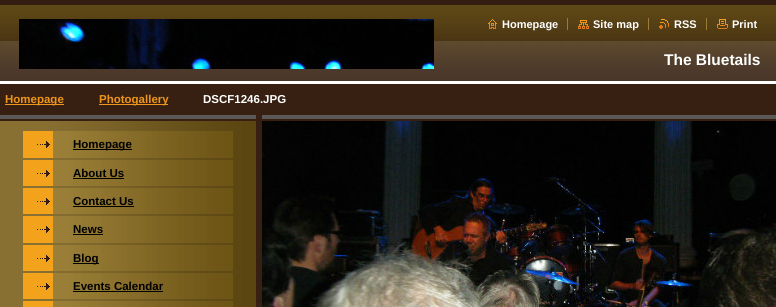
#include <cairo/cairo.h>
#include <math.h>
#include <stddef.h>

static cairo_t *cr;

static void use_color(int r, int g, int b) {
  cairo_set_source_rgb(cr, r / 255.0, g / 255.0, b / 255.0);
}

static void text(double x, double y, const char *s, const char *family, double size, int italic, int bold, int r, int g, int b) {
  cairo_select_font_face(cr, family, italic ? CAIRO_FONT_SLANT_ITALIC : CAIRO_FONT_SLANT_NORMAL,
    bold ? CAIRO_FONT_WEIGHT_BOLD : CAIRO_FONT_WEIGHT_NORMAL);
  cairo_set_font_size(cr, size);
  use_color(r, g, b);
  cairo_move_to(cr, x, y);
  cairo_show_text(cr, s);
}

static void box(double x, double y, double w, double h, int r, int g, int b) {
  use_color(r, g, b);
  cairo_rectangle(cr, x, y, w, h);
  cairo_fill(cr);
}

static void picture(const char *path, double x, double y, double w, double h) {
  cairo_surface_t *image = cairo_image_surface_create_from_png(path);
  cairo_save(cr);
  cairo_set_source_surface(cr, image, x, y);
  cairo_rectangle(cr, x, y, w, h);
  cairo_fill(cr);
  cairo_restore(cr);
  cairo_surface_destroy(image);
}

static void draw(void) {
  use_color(255, 255, 255);
  cairo_paint(cr);
  picture("img_01.png", 256, 115, 520, 192);
  picture("img_02.png", 0, 0, 776, 81);
  picture("img_03.png", 19, 19, 415, 50);
  picture("img_04.png", 488, 19, 9, 10);
  picture("img_05.png", 578, 20, 11, 9);
  box(567, 18, 1, 12, 154, 126, 55);
  picture("img_06.png", 659, 19, 10, 10);
  box(648, 18, 1, 12, 154, 126, 55);
  picture("img_07.png", 717, 19, 11, 10);
  box(706, 18, 1, 12, 154, 126, 55);
  box(0, 84, 776, 31, 55, 32, 18);
  box(5, 104, 59, 1, 237, 149, 28);
  box(99, 104, 69, 1, 237, 149, 28);
  picture("img_08.png", 0, 115, 256, 6);
  picture("img_09.png", 0, 121, 256, 186);
  picture("img_10.png", 23, 131, 210, 27);
  picture("img_11.png", 37, 141, 13, 7);
  box(73, 149, 59, 1, 0, 0, 0);
  picture("img_12.png", 23, 160, 210, 26);
  picture("img_11.png", 37, 170, 13, 7);
  box(73, 178, 51, 1, 0, 0, 0);
  picture("img_12.png", 23, 188, 210, 26);
  picture("img_11.png", 37, 198, 13, 7);
  box(73, 206, 61, 1, 0, 0, 0);
  picture("img_10.png", 23, 216, 210, 27);
  picture("img_11.png", 37, 226, 13, 7);
  box(73, 234, 30, 1, 0, 0, 0);
  picture("img_12.png", 23, 245, 210, 26);
  picture("img_11.png", 37, 255, 13, 7);
  box(73, 263, 26, 1, 0, 0, 0);
  picture("img_12.png", 23, 273, 210, 26);
  picture("img_11.png", 37, 283, 13, 7);
  box(73, 291, 90, 1, 0, 0, 0);
  picture("img_13.png", 23, 301, 210, 6);
  box(262, 115, 514, 4, 91, 88, 88);
  picture("img_14.png", 262, 121, 514, 186);
  text(502, 28, "Homepage", "Liberation Sans", 11, 0, 1, 255, 255, 255);
  text(593, 28, "Site map", "Liberation Sans", 11, 0, 1, 255, 255, 255);
  text(674, 28, "RSS", "Liberation Sans", 11, 0, 1, 255, 255, 255);
  text(732, 28, "Print", "Liberation Sans", 11, 0, 1, 255, 255, 255);
  text(664, 65, "The Bluetails", "Liberation Sans", 15.5, 0, 1, 255, 255, 255);
  text(5, 103, "Homepage", "Liberation Sans", 11.5, 0, 1, 237, 149, 28);
  text(99, 103, "Photogallery", "Liberation Sans", 11.5, 0, 1, 237, 149, 28);
  text(203, 103, "DSCF1246.JPG", "Liberation Sans", 11.5, 0, 1, 255, 255, 255);
  text(73, 148, "Homepage", "Liberation Sans", 11.5, 0, 1, 0, 0, 0);
  text(73, 177, "About Us", "Liberation Sans", 11.5, 0, 1, 0, 0, 0);
  text(73, 205, "Contact Us", "Liberation Sans", 11.5, 0, 1, 0, 0, 0);
  text(73, 233, "News", "Liberation Sans", 11.5, 0, 1, 0, 0, 0);
  text(73, 262, "Blog", "Liberation Sans", 11.5, 0, 1, 0, 0, 0);
  text(73, 290, "Events Calendar", "Liberation Sans", 11.5, 0, 1, 0, 0, 0);
}

int main(void) {
  cairo_surface_t *surface = cairo_image_surface_create(CAIRO_FORMAT_RGB24, 776, 307);
  cr = cairo_create(surface);
  cairo_font_options_t *options = cairo_font_options_create();
  cairo_font_options_set_hint_metrics(options, CAIRO_HINT_METRICS_OFF);
  cairo_font_options_set_hint_style(options, CAIRO_HINT_STYLE_NONE);
  cairo_set_font_options(cr, options);
  cairo_set_miter_limit(cr, 4);
  draw();
  cairo_surface_write_to_png(surface, "out.png");
  cairo_font_options_destroy(options);
  cairo_destroy(cr);
  cairo_surface_destroy(surface);
  return 0;
}
